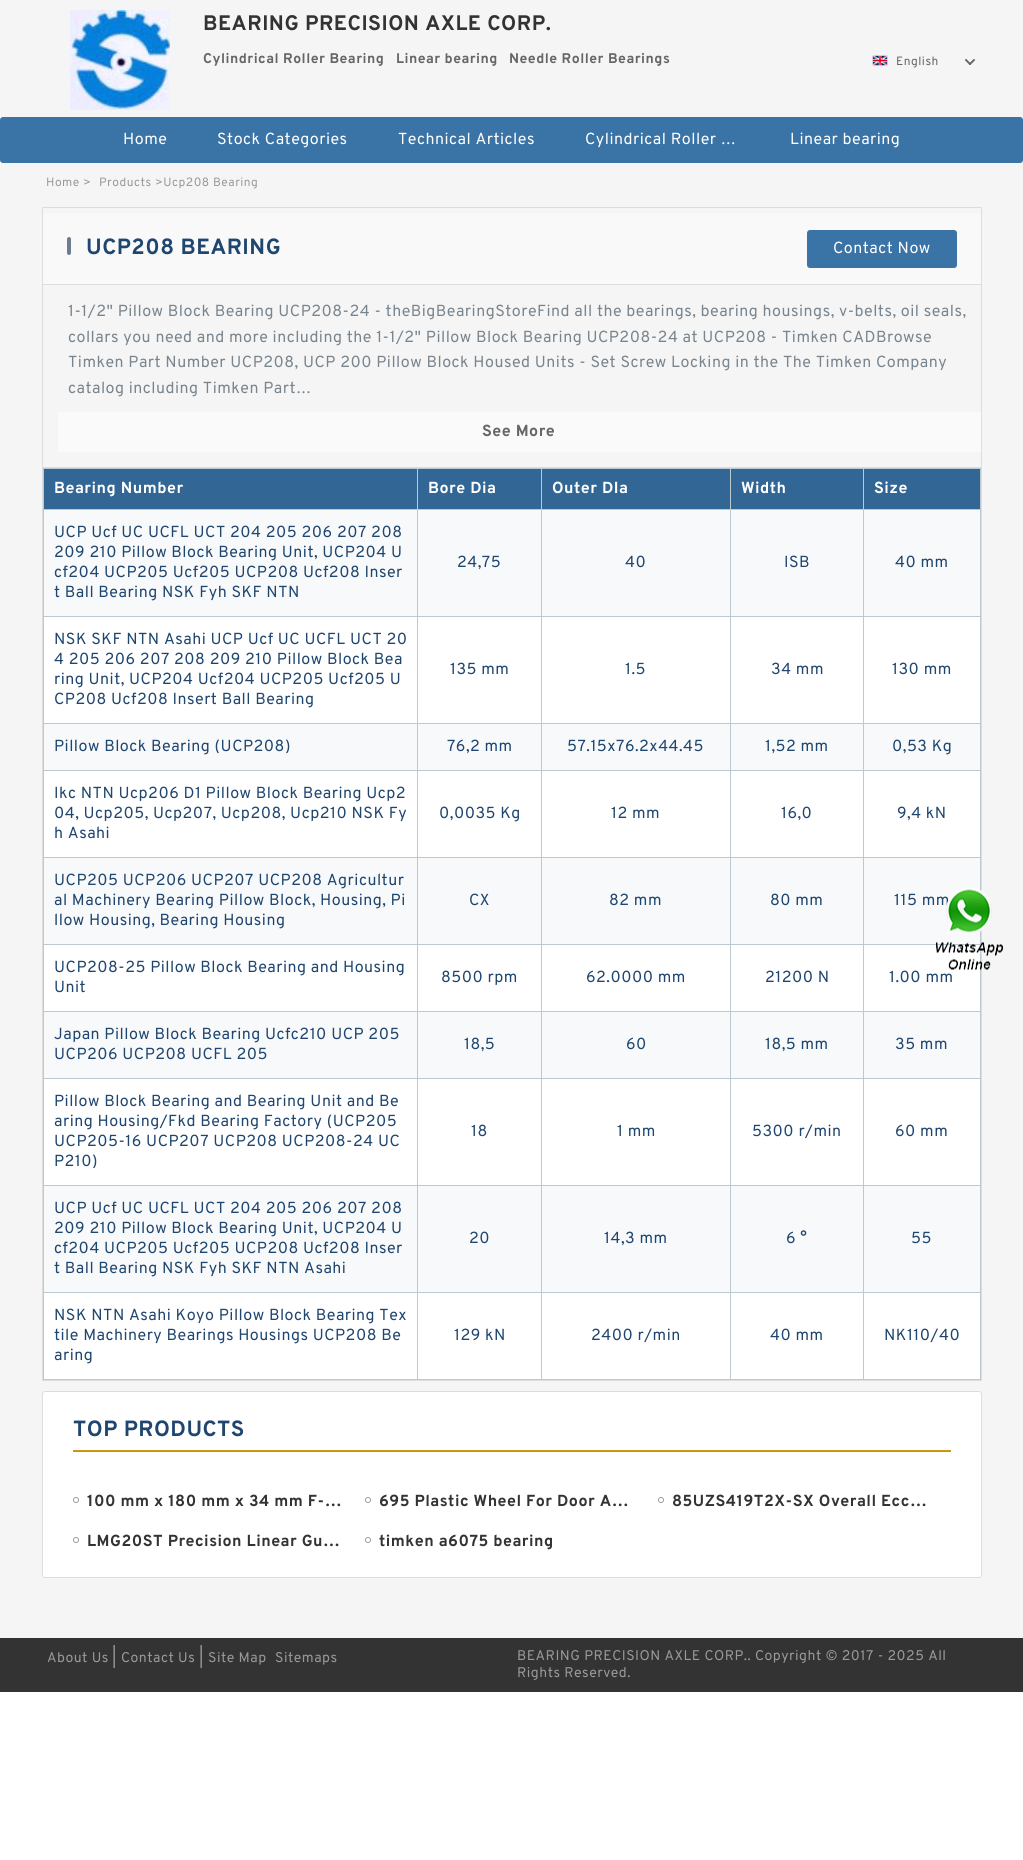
#include <cairo/cairo.h>
#include <math.h>
#include <stddef.h>

static cairo_t *cr;

static void use_color(int r, int g, int b) {
  cairo_set_source_rgb(cr, r / 255.0, g / 255.0, b / 255.0);
}

static void spaced_text(double x, double y, const char *s, double letter, double word) {
  cairo_move_to(cr, x, y);
  while (*s) {
    char ch[5] = {0};
    int n = 0;
    do ch[n++] = *s++; while ((*s & 0xC0) == 0x80);
    cairo_show_text(cr, ch);
    cairo_rel_move_to(cr, letter + word * (*ch == ' '), 0);
  }
}

static void box(double x, double y, double w, double h, int r, int g, int b) {
  use_color(r, g, b);
  cairo_rectangle(cr, x, y, w, h);
  cairo_fill(cr);
}

static void round_rect(double x, double y, double w, double h, double r) {
  cairo_new_sub_path(cr);
  cairo_arc(cr, x + w - r, y + h - r, r, 0, M_PI / 2);
  cairo_arc(cr, x + r, y + h - r, r, M_PI / 2, M_PI);
  cairo_arc(cr, x + r, y + r, r, M_PI, 1.5 * M_PI);
  cairo_arc(cr, x + w - r, y + r, r, 1.5 * M_PI, 2 * M_PI);
  cairo_close_path(cr);
}

static void picture(const char *path, double x, double y, double w, double h) {
  cairo_surface_t *image = cairo_image_surface_create_from_png(path);
  cairo_save(cr);
  cairo_set_source_surface(cr, image, x, y);
  cairo_rectangle(cr, x, y, w, h);
  cairo_fill(cr);
  cairo_restore(cr);
  cairo_surface_destroy(image);
}

static void draw(void) {
  use_color(255, 255, 255);
  cairo_paint(cr);
  box(0, 0, 1023, 1638, 245, 245, 245);
  picture("img_01.png", 70, 10, 100, 100);
  picture("img_02.png", 872, 55, 16, 11);
  picture("img_03.png", 965, 59, 10, 6);
  use_color(58, 115, 165);
  round_rect(0, 117, 1023, 46, 3);
  cairo_fill(cr);
  cairo_rectangle(cr, 42.5, 207.5, 939, 1173);
  use_color(221, 221, 221);
  cairo_set_line_width(cr, 1);
  cairo_stroke(cr);
  box(43, 213, 938, 71, 249, 249, 249);
  box(43, 284, 938, 1, 221, 221, 221);
  use_color(108, 124, 147);
  round_rect(67, 237, 4, 18, 2);
  cairo_fill(cr);
  use_color(58, 115, 165);
  round_rect(807, 230, 150, 38, 3);
  cairo_fill(cr);
  box(43, 467, 938, 1, 221, 221, 221);
  box(58, 412, 923, 40, 250, 250, 250);
  box(43, 1379, 938, 1, 189, 201, 209);
  box(43, 468, 1, 912, 189, 201, 209);
  box(44, 469, 373, 40, 50, 102, 149);
  box(43, 468, 938, 1, 189, 201, 209);
  box(44, 510, 936, 106, 248, 249, 250);
  box(43, 509, 938, 1, 189, 201, 209);
  box(44, 617, 936, 106, 255, 255, 255);
  box(43, 616, 938, 1, 189, 201, 209);
  box(44, 724, 936, 46, 248, 249, 250);
  box(43, 723, 938, 1, 189, 201, 209);
  box(44, 771, 936, 86, 255, 255, 255);
  box(43, 770, 938, 1, 189, 201, 209);
  box(44, 858, 936, 86, 248, 249, 250);
  box(43, 857, 938, 1, 189, 201, 209);
  box(44, 945, 936, 66, 255, 255, 255);
  box(43, 944, 938, 1, 189, 201, 209);
  box(44, 1012, 936, 66, 248, 249, 250);
  box(43, 1011, 938, 1, 189, 201, 209);
  box(44, 1079, 936, 106, 255, 255, 255);
  box(43, 1078, 938, 1, 189, 201, 209);
  box(44, 1186, 936, 106, 248, 249, 250);
  box(43, 1185, 938, 1, 189, 201, 209);
  box(44, 1293, 936, 86, 255, 255, 255);
  box(43, 1292, 938, 1, 189, 201, 209);
  box(417, 1292, 1, 88, 189, 201, 209);
  box(417, 1185, 1, 108, 189, 201, 209);
  box(417, 1078, 1, 108, 189, 201, 209);
  box(417, 1011, 1, 68, 189, 201, 209);
  box(417, 944, 1, 68, 189, 201, 209);
  box(417, 857, 1, 88, 189, 201, 209);
  box(417, 770, 1, 88, 189, 201, 209);
  box(417, 723, 1, 48, 189, 201, 209);
  box(417, 616, 1, 108, 189, 201, 209);
  box(417, 509, 1, 108, 189, 201, 209);
  box(417, 468, 1, 42, 189, 201, 209);
  box(418, 469, 123, 40, 50, 102, 149);
  box(541, 1292, 1, 88, 189, 201, 209);
  box(541, 1185, 1, 108, 189, 201, 209);
  box(541, 1078, 1, 108, 189, 201, 209);
  box(541, 1011, 1, 68, 189, 201, 209);
  box(541, 944, 1, 68, 189, 201, 209);
  box(541, 857, 1, 88, 189, 201, 209);
  box(541, 770, 1, 88, 189, 201, 209);
  box(541, 723, 1, 48, 189, 201, 209);
  box(541, 616, 1, 108, 189, 201, 209);
  box(541, 509, 1, 108, 189, 201, 209);
  box(541, 468, 1, 42, 189, 201, 209);
  box(542, 469, 188, 40, 50, 102, 149);
  box(730, 1292, 1, 88, 189, 201, 209);
  box(730, 1185, 1, 108, 189, 201, 209);
  box(730, 1078, 1, 108, 189, 201, 209);
  box(730, 1011, 1, 68, 189, 201, 209);
  box(730, 944, 1, 68, 189, 201, 209);
  box(730, 857, 1, 88, 189, 201, 209);
  box(730, 770, 1, 88, 189, 201, 209);
  box(730, 723, 1, 48, 189, 201, 209);
  box(730, 616, 1, 108, 189, 201, 209);
  box(730, 509, 1, 108, 189, 201, 209);
  box(730, 468, 1, 42, 189, 201, 209);
  box(731, 469, 132, 40, 50, 102, 149);
  box(863, 1292, 1, 88, 189, 201, 209);
  box(863, 1185, 1, 108, 189, 201, 209);
  box(863, 1078, 1, 108, 189, 201, 209);
  box(863, 1011, 1, 68, 189, 201, 209);
  box(863, 944, 1, 68, 189, 201, 209);
  box(863, 857, 1, 88, 189, 201, 209);
  box(863, 770, 1, 88, 189, 201, 209);
  box(863, 723, 1, 48, 189, 201, 209);
  box(863, 616, 1, 108, 189, 201, 209);
  box(863, 509, 1, 108, 189, 201, 209);
  box(863, 468, 1, 42, 189, 201, 209);
  box(864, 469, 116, 40, 50, 102, 149);
  box(980, 1292, 1, 88, 189, 201, 209);
  box(980, 1185, 1, 108, 189, 201, 209);
  box(980, 1078, 1, 108, 189, 201, 209);
  box(980, 1011, 1, 68, 189, 201, 209);
  box(980, 944, 1, 68, 189, 201, 209);
  box(980, 857, 1, 88, 189, 201, 209);
  box(980, 770, 1, 88, 189, 201, 209);
  box(980, 723, 1, 48, 189, 201, 209);
  box(980, 616, 1, 108, 189, 201, 209);
  box(980, 509, 1, 108, 189, 201, 209);
  box(980, 468, 1, 42, 189, 201, 209);
  use_color(255, 255, 255);
  round_rect(42.5, 1391.5, 939, 186, 2.5);
  cairo_fill_preserve(cr);
  use_color(221, 221, 221);
  cairo_stroke(cr);
  box(73, 1450, 878, 2, 202, 150, 24);
  picture("img_04.png", 73, 1497, 6, 6);
  picture("img_04.png", 365, 1497, 6, 6);
  picture("img_04.png", 658, 1497, 6, 6);
  picture("img_04.png", 73, 1537, 6, 6);
  picture("img_04.png", 365, 1537, 6, 6);
  box(0, 1638, 1023, 54, 51, 51, 51);
  cairo_select_font_face(cr, "Overpass", CAIRO_FONT_SLANT_NORMAL, CAIRO_FONT_WEIGHT_BOLD);
  cairo_set_font_size(cr, 21);
  spaced_text(203, 30, "BEARING PRECISION AXLE CORP.", 0.5, 0);
  cairo_set_font_size(cr, 14);
  use_color(102, 102, 102);
  spaced_text(203, 63, "Cylindrical Roller Bearing", 0.5, 0);
  spaced_text(396, 63, "Linear bearing", 0.5, 0);
  spaced_text(509, 63, "Needle Roller Bearings", 0.5, 0);
  cairo_select_font_face(cr, "Overpass", CAIRO_FONT_SLANT_NORMAL, CAIRO_FONT_WEIGHT_NORMAL);
  cairo_set_font_size(cr, 12);
  spaced_text(896, 65, "English", 0.5, 0);
  cairo_set_font_size(cr, 16);
  use_color(255, 255, 255);
  spaced_text(123, 144, "Home", 0.5, 0);
  spaced_text(217, 144, "Stock Categories", 0.5, 0);
  spaced_text(398, 144, "Technical Articles", 0.5, 0);
  spaced_text(585, 144, "Cylindrical Roller …", 0.5, 0);
  spaced_text(790, 144, "Linear bearing", 0.5, 0);
  cairo_set_font_size(cr, 12);
  use_color(153, 153, 153);
  spaced_text(46, 186, "Home", 0.5, 0);
  spaced_text(83, 186, ">", 0.5, 0);
  spaced_text(99, 186, "Products", 0.5, 0);
  spaced_text(155, 186, ">Ucp208 Bearing", 0.5, 0);
  cairo_select_font_face(cr, "Overpass", CAIRO_FONT_SLANT_NORMAL, CAIRO_FONT_WEIGHT_BOLD);
  cairo_set_font_size(cr, 22);
  use_color(31, 70, 111);
  spaced_text(86, 254, "UCP208 BEARING", 0.5, 0);
  cairo_select_font_face(cr, "Overpass", CAIRO_FONT_SLANT_NORMAL, CAIRO_FONT_WEIGHT_NORMAL);
  cairo_set_font_size(cr, 16);
  use_color(255, 255, 255);
  spaced_text(833, 253, "Contact Now", 0.5, 0);
  use_color(121, 133, 142);
  spaced_text(68, 316, "1-1/2\" Pillow Block Bearing UCP208-24 - theBigBearingStoreFind all the bearings, bearing housings, v-belts, oil seals,", 0.5, 0);
  spaced_text(68, 342, "collars you need and more including the 1-1/2\" Pillow Block Bearing UCP208-24 at UCP208 - Timken CADBrowse", 0.5, 0);
  spaced_text(68, 367, "Timken Part Number UCP208, UCP 200 Pillow Block Housed Units - Set Screw Locking in the The Timken Company", 0.5, 0);
  spaced_text(68, 393, "catalog including Timken Part…", 0.5, 0);
  cairo_select_font_face(cr, "Overpass", CAIRO_FONT_SLANT_NORMAL, CAIRO_FONT_WEIGHT_BOLD);
  use_color(102, 102, 102);
  spaced_text(482, 436, "See More", 0.5, 0);
  use_color(255, 255, 255);
  spaced_text(54, 493, "Bearing Number", 0.5, 0);
  spaced_text(428, 493, "Bore Dia", 0.5, 0);
  spaced_text(552, 493, "Outer DIa", 0.5, 0);
  spaced_text(741, 493, "Width", 0.5, 0);
  spaced_text(874, 493, "Size", 0.5, 0);
  cairo_select_font_face(cr, "Overpass", CAIRO_FONT_SLANT_NORMAL, CAIRO_FONT_WEIGHT_NORMAL);
  use_color(31, 70, 111);
  spaced_text(54, 537, "UCP Ucf UC UCFL UCT 204 205 206 207 208", 0.5, 0);
  spaced_text(54, 557, "209 210 Pillow Block Bearing Unit, UCP204 U", 0.5, 0);
  spaced_text(54, 577, "cf204 UCP205 Ucf205 UCP208 Ucf208 Inser", 0.5, 0);
  spaced_text(54, 597, "t Ball Bearing NSK Fyh SKF NTN", 0.5, 0);
  spaced_text(457, 567, "24,75", 0.5, 0);
  spaced_text(625, 567, "40", 0.5, 0);
  spaced_text(784, 567, "ISB", 0.5, 0);
  spaced_text(895, 567, "40 mm", 0.5, 0);
  spaced_text(54, 644, "NSK SKF NTN Asahi UCP Ucf UC UCFL UCT 20", 0.5, 0);
  spaced_text(54, 664, "4 205 206 207 208 209 210 Pillow Block Bea", 0.5, 0);
  spaced_text(54, 684, "ring Unit, UCP204 Ucf204 UCP205 Ucf205 U", 0.5, 0);
  spaced_text(54, 704, "CP208 Ucf208 Insert Ball Bearing", 0.5, 0);
  spaced_text(450, 674, "135 mm", 0.5, 0);
  spaced_text(625, 674, "1.5", 0.5, 0);
  spaced_text(771, 674, "34 mm", 0.5, 0);
  spaced_text(892, 674, "130 mm", 0.5, 0);
  spaced_text(54, 751, "Pillow Block Bearing (UCP208)", 0.5, 0);
  spaced_text(447, 751, "76,2 mm", 0.5, 0);
  spaced_text(567, 751, "57.15x76.2x44.45", 0.5, 0);
  spaced_text(765, 751, "1,52 mm", 0.5, 0);
  spaced_text(892, 751, "0,53 Kg", 0.5, 0);
  spaced_text(54, 798, "Ikc NTN Ucp206 D1 Pillow Block Bearing Ucp2", 0.5, 0);
  spaced_text(54, 818, "04, Ucp205, Ucp207, Ucp208, Ucp210 NSK Fy", 0.5, 0);
  spaced_text(54, 838, "h Asahi", 0.5, 0);
  spaced_text(439, 818, "0,0035 Kg", 0.5, 0);
  spaced_text(611, 818, "12 mm", 0.5, 0);
  spaced_text(781, 818, "16,0", 0.5, 0);
  spaced_text(897, 818, "9,4 kN", 0.5, 0);
  spaced_text(54, 885, "UCP205 UCP206 UCP207 UCP208 Agricultur", 0.5, 0);
  spaced_text(54, 905, "al Machinery Bearing Pillow Block, Housing, Pi", 0.5, 0);
  spaced_text(54, 925, "llow Housing, Bearing Housing", 0.5, 0);
  spaced_text(469, 905, "CX", 0.5, 0);
  spaced_text(609, 905, "82 mm", 0.5, 0);
  spaced_text(770, 905, "80 mm", 0.5, 0);
  spaced_text(894, 905, "115 mm", 0.5, 0);
  spaced_text(54, 972, "UCP208-25 Pillow Block Bearing and Housing", 0.5, 0);
  spaced_text(54, 992, "Unit", 0.5, 0);
  spaced_text(441, 982, "8500 rpm", 0.5, 0);
  spaced_text(586, 982, "62.0000 mm", 0.5, 0);
  spaced_text(765, 982, "21200 N", 0.5, 0);
  spaced_text(889, 982, "1.00 mm", 0.5, 0);
  spaced_text(54, 1039, "Japan Pillow Block Bearing Ucfc210 UCP 205", 0.5, 0);
  spaced_text(54, 1059, "UCP206 UCP208 UCFL 205", 0.5, 0);
  spaced_text(464, 1049, "18,5", 0.5, 0);
  spaced_text(626, 1049, "60", 0.5, 0);
  spaced_text(765, 1049, "18,5 mm", 0.5, 0);
  spaced_text(895, 1049, "35 mm", 0.5, 0);
  spaced_text(54, 1106, "Pillow Block Bearing and Bearing Unit and Be", 0.5, 0);
  spaced_text(54, 1126, "aring Housing/Fkd Bearing Factory (UCP205", 0.5, 0);
  spaced_text(54, 1146, "UCP205-16 UCP207 UCP208 UCP208-24 UC", 0.5, 0);
  spaced_text(54, 1166, "P210)", 0.5, 0);
  spaced_text(471, 1136, "18", 0.5, 0);
  spaced_text(617, 1136, "1 mm", 0.5, 0);
  spaced_text(752, 1136, "5300 r/min", 0.5, 0);
  spaced_text(895, 1136, "60 mm", 0.5, 0);
  spaced_text(54, 1213, "UCP Ucf UC UCFL UCT 204 205 206 207 208", 0.5, 0);
  spaced_text(54, 1233, "209 210 Pillow Block Bearing Unit, UCP204 U", 0.5, 0);
  spaced_text(54, 1253, "cf204 UCP205 Ucf205 UCP208 Ucf208 Inser", 0.5, 0);
  spaced_text(54, 1273, "t Ball Bearing NSK Fyh SKF NTN Asahi", 0.5, 0);
  spaced_text(469, 1243, "20", 0.5, 0);
  spaced_text(604, 1243, "14,3 mm", 0.5, 0);
  spaced_text(786, 1243, "6 °", 0.5, 0);
  spaced_text(911, 1243, "55", 0.5, 0);
  spaced_text(54, 1320, "NSK NTN Asahi Koyo Pillow Block Bearing Tex", 0.5, 0);
  spaced_text(54, 1340, "tile Machinery Bearings Housings UCP208 Be", 0.5, 0);
  spaced_text(54, 1360, "aring", 0.5, 0);
  spaced_text(454, 1340, "129 kN", 0.5, 0);
  spaced_text(591, 1340, "2400 r/min", 0.5, 0);
  spaced_text(770, 1340, "40 mm", 0.5, 0);
  spaced_text(884, 1340, "NK110/40", 0.5, 0);
  cairo_select_font_face(cr, "Overpass", CAIRO_FONT_SLANT_NORMAL, CAIRO_FONT_WEIGHT_BOLD);
  cairo_set_font_size(cr, 22);
  spaced_text(73, 1436, "TOP PRODUCTS", 0.5, 0);
  cairo_set_font_size(cr, 16);
  use_color(51, 51, 51);
  spaced_text(87, 1506, "100 mm x 180 mm x 34 mm F-…", 0.5, 0);
  spaced_text(379, 1506, "695 Plastic Wheel For Door A…", 0.5, 0);
  spaced_text(672, 1506, "85UZS419T2X-SX Overall Ecc…", 0.5, 0);
  spaced_text(87, 1546, "LMG20ST Precision Linear Gu…", 0.5, 0);
  spaced_text(379, 1546, "timken a6075 bearing", 0.5, 0);
  picture("img_05.png", 936, 888, 68, 82);
  cairo_select_font_face(cr, "Overpass", CAIRO_FONT_SLANT_NORMAL, CAIRO_FONT_WEIGHT_NORMAL);
  cairo_set_font_size(cr, 14);
  use_color(153, 153, 153);
  spaced_text(47, 1662, "About Us", 0.5, 0);
  cairo_set_font_size(cr, 16);
  spaced_text(112, 1662, "|", 0.5, 0);
  cairo_set_font_size(cr, 14);
  spaced_text(121, 1662, "Contact Us", 0.5, 0);
  cairo_set_font_size(cr, 16);
  spaced_text(199, 1662, "|", 0.5, 0);
  cairo_set_font_size(cr, 14);
  spaced_text(208, 1662, "Site Map", 0.5, 0);
  spaced_text(275, 1662, "Sitemaps", 0.5, 0);
  spaced_text(517, 1660, "BEARING PRECISION AXLE CORP.. Copyright © 2017 - 2025 All", 0.5, 0);
  spaced_text(517, 1677, "Rights Reserved.", 0.5, 0);
}

int main(void) {
  cairo_surface_t *surface = cairo_image_surface_create(CAIRO_FORMAT_RGB24, 1023, 1860);
  cr = cairo_create(surface);
  cairo_font_options_t *options = cairo_font_options_create();
  cairo_font_options_set_hint_metrics(options, CAIRO_HINT_METRICS_OFF);
  cairo_font_options_set_hint_style(options, CAIRO_HINT_STYLE_NONE);
  cairo_set_font_options(cr, options);
  cairo_set_miter_limit(cr, 4);
  draw();
  cairo_surface_write_to_png(surface, "out.png");
  cairo_font_options_destroy(options);
  cairo_destroy(cr);
  cairo_surface_destroy(surface);
  return 0;
}
